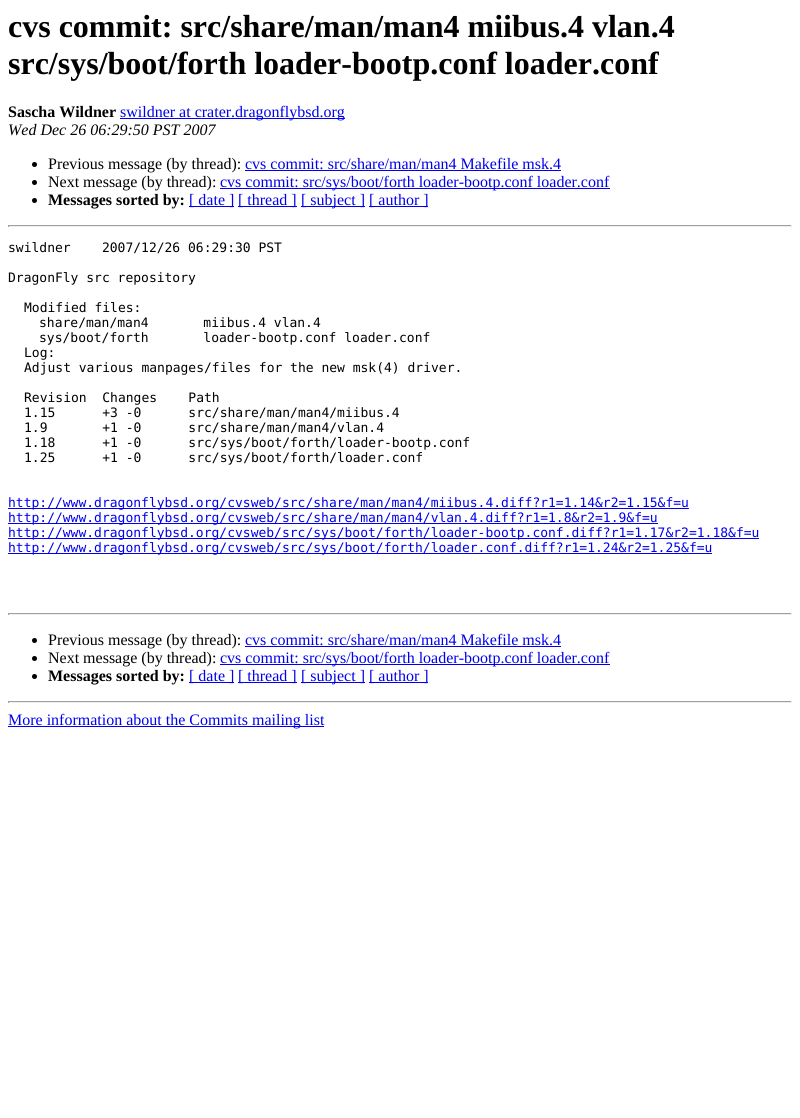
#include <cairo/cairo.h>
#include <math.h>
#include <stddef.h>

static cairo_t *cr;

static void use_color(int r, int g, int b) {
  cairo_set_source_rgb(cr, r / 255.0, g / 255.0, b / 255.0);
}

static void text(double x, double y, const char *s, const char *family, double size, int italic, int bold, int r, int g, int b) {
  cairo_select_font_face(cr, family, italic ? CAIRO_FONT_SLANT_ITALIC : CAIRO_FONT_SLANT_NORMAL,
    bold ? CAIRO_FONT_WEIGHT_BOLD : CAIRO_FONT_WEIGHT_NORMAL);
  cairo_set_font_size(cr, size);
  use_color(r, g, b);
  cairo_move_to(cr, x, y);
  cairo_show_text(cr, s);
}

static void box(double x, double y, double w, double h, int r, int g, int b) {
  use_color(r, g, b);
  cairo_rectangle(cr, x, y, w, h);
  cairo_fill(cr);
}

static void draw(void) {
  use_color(255, 255, 255);
  cairo_paint(cr);
  box(120, 118, 225, 1, 0, 0, 238);
  use_color(0, 0, 0);
  cairo_arc(cr, 34.5, 164.5, 2.5, 0, 2 * M_PI);
  cairo_fill(cr);
  box(245, 170, 316, 1, 0, 0, 238);
  use_color(0, 0, 0);
  cairo_arc(cr, 34.5, 182.5, 2.5, 0, 2 * M_PI);
  cairo_fill(cr);
  box(220, 188, 390, 1, 0, 0, 238);
  use_color(0, 0, 0);
  cairo_arc(cr, 34.5, 200.5, 2.5, 0, 2 * M_PI);
  cairo_fill(cr);
  box(189, 206, 45, 1, 0, 0, 238);
  box(238, 206, 59, 1, 0, 0, 238);
  box(301, 206, 64, 1, 0, 0, 238);
  box(369, 206, 59, 1, 0, 0, 238);
  box(8, 225, 784, 1, 159, 159, 159);
  box(791, 225, 1, 2, 238, 238, 238);
  box(8, 226, 784, 1, 238, 238, 238);
  box(8, 225, 1, 2, 159, 159, 159);
  box(8, 508, 681, 1, 0, 0, 238);
  box(8, 523, 650, 1, 0, 0, 238);
  box(8, 538, 751, 1, 0, 0, 238);
  box(8, 553, 704, 1, 0, 0, 238);
  box(8, 613, 784, 1, 159, 159, 159);
  box(791, 613, 1, 2, 238, 238, 238);
  box(8, 614, 784, 1, 238, 238, 238);
  box(8, 613, 1, 2, 159, 159, 159);
  use_color(0, 0, 0);
  cairo_arc(cr, 34.5, 640.5, 2.5, 0, 2 * M_PI);
  cairo_fill(cr);
  box(245, 646, 316, 1, 0, 0, 238);
  use_color(0, 0, 0);
  cairo_arc(cr, 34.5, 658.5, 2.5, 0, 2 * M_PI);
  cairo_fill(cr);
  box(220, 664, 390, 1, 0, 0, 238);
  use_color(0, 0, 0);
  cairo_arc(cr, 34.5, 676.5, 2.5, 0, 2 * M_PI);
  cairo_fill(cr);
  box(189, 682, 45, 1, 0, 0, 238);
  box(238, 682, 59, 1, 0, 0, 238);
  box(301, 682, 64, 1, 0, 0, 238);
  box(369, 682, 59, 1, 0, 0, 238);
  box(8, 701, 784, 1, 159, 159, 159);
  box(791, 701, 1, 2, 238, 238, 238);
  box(8, 702, 784, 1, 238, 238, 238);
  box(8, 701, 1, 2, 159, 159, 159);
  box(8, 726, 316, 1, 0, 0, 238);
  text(8, 37, "cvs commit: src/share/man/man4 miibus.4 vlan.4", "Liberation Serif", 32, 0, 1, 0, 0, 0);
  text(8, 74, "src/sys/boot/forth loader-bootp.conf loader.conf", "Liberation Serif", 32, 0, 1, 0, 0, 0);
  text(8, 117, "Sascha Wildner", "Liberation Serif", 16, 0, 1, 0, 0, 0);
  text(120, 117, "swildner at crater.dragonflybsd.org", "Liberation Serif", 16, 0, 0, 0, 0, 238);
  text(8, 135, "Wed Dec 26 06:29:50 PST 2007", "Liberation Serif", 16, 1, 0, 0, 0, 0);
  text(48, 169, "Previous message (by thread):", "Liberation Serif", 16, 0, 0, 0, 0, 0);
  text(245, 169, "cvs commit: src/share/man/man4 Makefile msk.4", "Liberation Serif", 16, 0, 0, 0, 0, 238);
  text(48, 187, "Next message (by thread):", "Liberation Serif", 16, 0, 0, 0, 0, 0);
  text(220, 187, "cvs commit: src/sys/boot/forth loader-bootp.conf loader.conf", "Liberation Serif", 16, 0, 0, 0, 0, 238);
  text(48, 205, "Messages sorted by:", "Liberation Serif", 16, 0, 1, 0, 0, 0);
  text(189, 205, "[ date ]", "Liberation Serif", 16, 0, 0, 0, 0, 238);
  text(238, 205, "[ thread ]", "Liberation Serif", 16, 0, 0, 0, 0, 238);
  text(301, 205, "[ subject ]", "Liberation Serif", 16, 0, 0, 0, 0, 238);
  text(369, 205, "[ author ]", "Liberation Serif", 16, 0, 0, 0, 0, 238);
  text(8, 252, "swildner    2007/12/26 06:29:30 PST", "DejaVu Sans Mono", 13, 0, 0, 0, 0, 0);
  text(8, 282, "DragonFly src repository", "DejaVu Sans Mono", 13, 0, 0, 0, 0, 0);
  text(24, 312, "Modified files:", "DejaVu Sans Mono", 13, 0, 0, 0, 0, 0);
  text(39, 327, "share/man/man4       miibus.4 vlan.4", "DejaVu Sans Mono", 13, 0, 0, 0, 0, 0);
  text(39, 342, "sys/boot/forth       loader-bootp.conf loader.conf", "DejaVu Sans Mono", 13, 0, 0, 0, 0, 0);
  text(24, 357, "Log:", "DejaVu Sans Mono", 13, 0, 0, 0, 0, 0);
  text(24, 372, "Adjust various manpages/files for the new msk(4) driver.", "DejaVu Sans Mono", 13, 0, 0, 0, 0, 0);
  text(24, 402, "Revision  Changes    Path", "DejaVu Sans Mono", 13, 0, 0, 0, 0, 0);
  text(24, 417, "1.15      +3 -0      src/share/man/man4/miibus.4", "DejaVu Sans Mono", 13, 0, 0, 0, 0, 0);
  text(24, 432, "1.9       +1 -0      src/share/man/man4/vlan.4", "DejaVu Sans Mono", 13, 0, 0, 0, 0, 0);
  text(24, 447, "1.18      +1 -0      src/sys/boot/forth/loader-bootp.conf", "DejaVu Sans Mono", 13, 0, 0, 0, 0, 0);
  text(24, 462, "1.25      +1 -0      src/sys/boot/forth/loader.conf", "DejaVu Sans Mono", 13, 0, 0, 0, 0, 0);
  text(8, 507, "http://www.dragonflybsd.org/cvsweb/src/share/man/man4/miibus.4.diff?r1=1.14&r2=1.15&f=u", "DejaVu Sans Mono", 13, 0, 0, 0, 0, 238);
  text(8, 522, "http://www.dragonflybsd.org/cvsweb/src/share/man/man4/vlan.4.diff?r1=1.8&r2=1.9&f=u", "DejaVu Sans Mono", 13, 0, 0, 0, 0, 238);
  text(8, 537, "http://www.dragonflybsd.org/cvsweb/src/sys/boot/forth/loader-bootp.conf.diff?r1=1.17&r2=1.18&f=u", "DejaVu Sans Mono", 13, 0, 0, 0, 0, 238);
  text(8, 552, "http://www.dragonflybsd.org/cvsweb/src/sys/boot/forth/loader.conf.diff?r1=1.24&r2=1.25&f=u", "DejaVu Sans Mono", 13, 0, 0, 0, 0, 238);
  text(48, 645, "Previous message (by thread):", "Liberation Serif", 16, 0, 0, 0, 0, 0);
  text(245, 645, "cvs commit: src/share/man/man4 Makefile msk.4", "Liberation Serif", 16, 0, 0, 0, 0, 238);
  text(48, 663, "Next message (by thread):", "Liberation Serif", 16, 0, 0, 0, 0, 0);
  text(220, 663, "cvs commit: src/sys/boot/forth loader-bootp.conf loader.conf", "Liberation Serif", 16, 0, 0, 0, 0, 238);
  text(48, 681, "Messages sorted by:", "Liberation Serif", 16, 0, 1, 0, 0, 0);
  text(189, 681, "[ date ]", "Liberation Serif", 16, 0, 0, 0, 0, 238);
  text(238, 681, "[ thread ]", "Liberation Serif", 16, 0, 0, 0, 0, 238);
  text(301, 681, "[ subject ]", "Liberation Serif", 16, 0, 0, 0, 0, 238);
  text(369, 681, "[ author ]", "Liberation Serif", 16, 0, 0, 0, 0, 238);
  text(8, 725, "More information about the Commits mailing list", "Liberation Serif", 16, 0, 0, 0, 0, 238);
}

int main(void) {
  cairo_surface_t *surface = cairo_image_surface_create(CAIRO_FORMAT_RGB24, 800, 1118);
  cr = cairo_create(surface);
  cairo_font_options_t *options = cairo_font_options_create();
  cairo_font_options_set_hint_metrics(options, CAIRO_HINT_METRICS_OFF);
  cairo_font_options_set_hint_style(options, CAIRO_HINT_STYLE_NONE);
  cairo_set_font_options(cr, options);
  cairo_set_miter_limit(cr, 4);
  draw();
  cairo_surface_write_to_png(surface, "out.png");
  cairo_font_options_destroy(options);
  cairo_destroy(cr);
  cairo_surface_destroy(surface);
  return 0;
}
